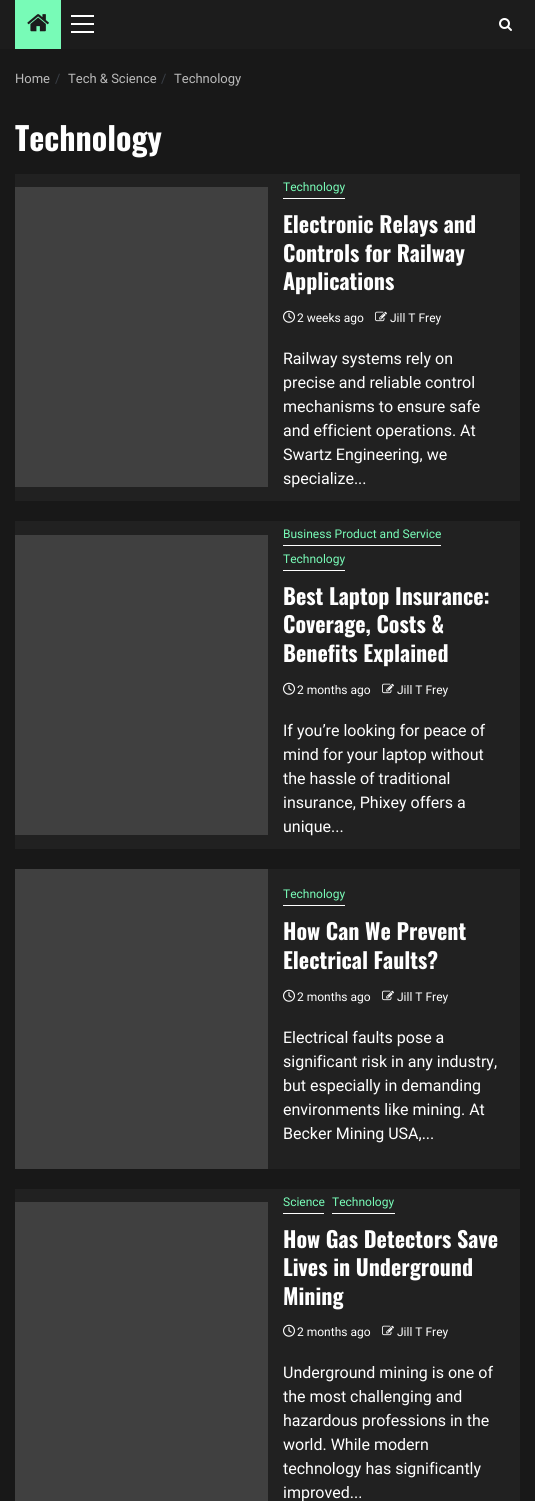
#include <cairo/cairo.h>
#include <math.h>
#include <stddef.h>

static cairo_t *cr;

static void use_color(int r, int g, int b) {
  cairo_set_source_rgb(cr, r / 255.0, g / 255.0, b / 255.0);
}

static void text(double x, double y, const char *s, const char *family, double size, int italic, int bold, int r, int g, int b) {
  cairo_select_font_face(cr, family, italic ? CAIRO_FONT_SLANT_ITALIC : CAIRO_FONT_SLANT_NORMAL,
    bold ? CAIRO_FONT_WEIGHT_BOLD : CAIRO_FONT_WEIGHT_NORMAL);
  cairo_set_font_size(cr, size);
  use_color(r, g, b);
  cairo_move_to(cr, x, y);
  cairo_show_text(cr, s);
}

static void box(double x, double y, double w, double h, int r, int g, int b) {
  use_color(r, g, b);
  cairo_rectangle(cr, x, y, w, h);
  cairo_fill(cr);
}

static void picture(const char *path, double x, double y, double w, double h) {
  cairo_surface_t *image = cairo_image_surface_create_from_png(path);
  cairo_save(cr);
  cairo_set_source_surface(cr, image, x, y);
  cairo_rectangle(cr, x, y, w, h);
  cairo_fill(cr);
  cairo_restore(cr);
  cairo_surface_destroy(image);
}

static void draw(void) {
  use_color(24, 24, 24);
  cairo_paint(cr);
  box(0, 0, 535, 49, 28, 28, 28);
  box(15, 0, 46, 49, 120, 251, 183);
  picture("img_01.png", 27, 14, 22, 18);
  box(71, 23, 23, 2, 255, 255, 255);
  box(71, 15, 23, 2, 255, 255, 255);
  box(71, 31, 23, 2, 255, 255, 255);
  picture("img_02.png", 499, 18, 13, 13);
  box(15, 174, 505, 327, 33, 33, 33);
  box(15, 187, 253, 300, 64, 64, 64);
  box(283, 198, 62, 1, 255, 255, 255);
  picture("img_03.png", 283, 310, 12, 13);
  picture("img_04.png", 375, 311, 12, 11);
  box(15, 521, 505, 328, 33, 33, 33);
  box(15, 535, 253, 300, 64, 64, 64);
  box(283, 545, 158, 1, 255, 255, 255);
  box(283, 570, 62, 1, 255, 255, 255);
  picture("img_03.png", 283, 682, 12, 13);
  picture("img_04.png", 382, 683, 12, 11);
  box(268, 869, 252, 300, 33, 33, 33);
  box(15, 869, 253, 300, 64, 64, 64);
  box(283, 905, 62, 1, 255, 255, 255);
  picture("img_03.png", 283, 989, 12, 13);
  picture("img_04.png", 382, 990, 12, 11);
  box(15, 1189, 505, 312, 33, 33, 33);
  box(15, 1202, 253, 299, 64, 64, 64);
  box(283, 1213, 41, 1, 255, 255, 255);
  box(332, 1213, 63, 1, 255, 255, 255);
  picture("img_03.png", 283, 1324, 12, 13);
  picture("img_04.png", 382, 1325, 12, 11);
  text(15, 83, "Home", "Roboto", 13, 0, 0, 186, 186, 186);
  text(55, 83, "/", "Roboto", 13, 0, 0, 57, 62, 70);
  text(68, 83, "Tech & Science", "Roboto", 13, 0, 0, 186, 186, 186);
  text(161, 83, "/", "Roboto", 13, 0, 0, 57, 62, 70);
  text(174, 83, "Technology", "Roboto", 13, 0, 0, 186, 186, 186);
  text(15, 151, "Technology", "Oswald", 32, 0, 1, 255, 255, 255);
  text(283, 191, "Technology", "Roboto", 12, 0, 0, 120, 251, 183);
  text(283, 233, "Electronic Relays and", "Oswald", 22, 0, 1, 255, 255, 255);
  text(283, 262, "Controls for Railway", "Oswald", 22, 0, 1, 255, 255, 255);
  text(283, 290, "Applications", "Oswald", 22, 0, 1, 255, 255, 255);
  text(297, 322, "2 weeks ago", "Roboto", 12, 0, 0, 255, 255, 255);
  text(390, 322, "Jill T Frey", "Roboto", 12, 0, 0, 255, 255, 255);
  text(283, 364, "Railway systems rely on", "Roboto", 16, 0, 0, 255, 255, 255);
  text(283, 388, "precise and reliable control", "Roboto", 16, 0, 0, 255, 255, 255);
  text(283, 412, "mechanisms to ensure safe", "Roboto", 16, 0, 0, 255, 255, 255);
  text(283, 436, "and efficient operations. At", "Roboto", 16, 0, 0, 255, 255, 255);
  text(283, 460, "Swartz Engineering, we", "Roboto", 16, 0, 0, 255, 255, 255);
  text(283, 484, "specialize...", "Roboto", 16, 0, 0, 255, 255, 255);
  text(283, 538, "Business Product and Service", "Roboto", 12, 0, 0, 120, 251, 183);
  text(283, 563, "Technology", "Roboto", 12, 0, 0, 120, 251, 183);
  text(283, 605, "Best Laptop Insurance:", "Oswald", 22, 0, 1, 255, 255, 255);
  text(283, 633, "Coverage, Costs &", "Oswald", 22, 0, 1, 255, 255, 255);
  text(283, 662, "Benefits Explained", "Oswald", 22, 0, 1, 255, 255, 255);
  text(297, 694, "2 months ago", "Roboto", 12, 0, 0, 255, 255, 255);
  text(397, 694, "Jill T Frey", "Roboto", 12, 0, 0, 255, 255, 255);
  text(283, 736, "If you’re looking for peace of", "Roboto", 16, 0, 0, 255, 255, 255);
  text(283, 760, "mind for your laptop without", "Roboto", 16, 0, 0, 255, 255, 255);
  text(283, 784, "the hassle of traditional", "Roboto", 16, 0, 0, 255, 255, 255);
  text(283, 808, "insurance, Phixey offers a", "Roboto", 16, 0, 0, 255, 255, 255);
  text(283, 832, "unique...", "Roboto", 16, 0, 0, 255, 255, 255);
  text(283, 898, "Technology", "Roboto", 12, 0, 0, 120, 251, 183);
  text(283, 940, "How Can We Prevent", "Oswald", 22, 0, 1, 255, 255, 255);
  text(283, 969, "Electrical Faults?", "Oswald", 22, 0, 1, 255, 255, 255);
  text(297, 1001, "2 months ago", "Roboto", 12, 0, 0, 255, 255, 255);
  text(397, 1001, "Jill T Frey", "Roboto", 12, 0, 0, 255, 255, 255);
  text(283, 1043, "Electrical faults pose a", "Roboto", 16, 0, 0, 255, 255, 255);
  text(283, 1067, "significant risk in any industry,", "Roboto", 16, 0, 0, 255, 255, 255);
  text(283, 1091, "but especially in demanding", "Roboto", 16, 0, 0, 255, 255, 255);
  text(283, 1115, "environments like mining. At", "Roboto", 16, 0, 0, 255, 255, 255);
  text(283, 1139, "Becker Mining USA,...", "Roboto", 16, 0, 0, 255, 255, 255);
  text(283, 1206, "Science", "Roboto", 12, 0, 0, 120, 251, 183);
  text(332, 1206, "Technology", "Roboto", 12, 0, 0, 120, 251, 183);
  text(283, 1248, "How Gas Detectors Save", "Oswald", 22, 0, 1, 255, 255, 255);
  text(283, 1276, "Lives in Underground", "Oswald", 22, 0, 1, 255, 255, 255);
  text(283, 1305, "Mining", "Oswald", 22, 0, 1, 255, 255, 255);
  text(297, 1336, "2 months ago", "Roboto", 12, 0, 0, 255, 255, 255);
  text(397, 1336, "Jill T Frey", "Roboto", 12, 0, 0, 255, 255, 255);
  text(283, 1378, "Underground mining is one of", "Roboto", 16, 0, 0, 255, 255, 255);
  text(283, 1402, "the most challenging and", "Roboto", 16, 0, 0, 255, 255, 255);
  text(283, 1426, "hazardous professions in the", "Roboto", 16, 0, 0, 255, 255, 255);
  text(283, 1450, "world. While modern", "Roboto", 16, 0, 0, 255, 255, 255);
  text(283, 1474, "technology has significantly", "Roboto", 16, 0, 0, 255, 255, 255);
  text(283, 1498, "improved...", "Roboto", 16, 0, 0, 255, 255, 255);
}

int main(void) {
  cairo_surface_t *surface = cairo_image_surface_create(CAIRO_FORMAT_RGB24, 535, 1501);
  cr = cairo_create(surface);
  cairo_font_options_t *options = cairo_font_options_create();
  cairo_font_options_set_hint_metrics(options, CAIRO_HINT_METRICS_OFF);
  cairo_font_options_set_hint_style(options, CAIRO_HINT_STYLE_NONE);
  cairo_set_font_options(cr, options);
  cairo_set_miter_limit(cr, 4);
  draw();
  cairo_surface_write_to_png(surface, "out.png");
  cairo_font_options_destroy(options);
  cairo_destroy(cr);
  cairo_surface_destroy(surface);
  return 0;
}
